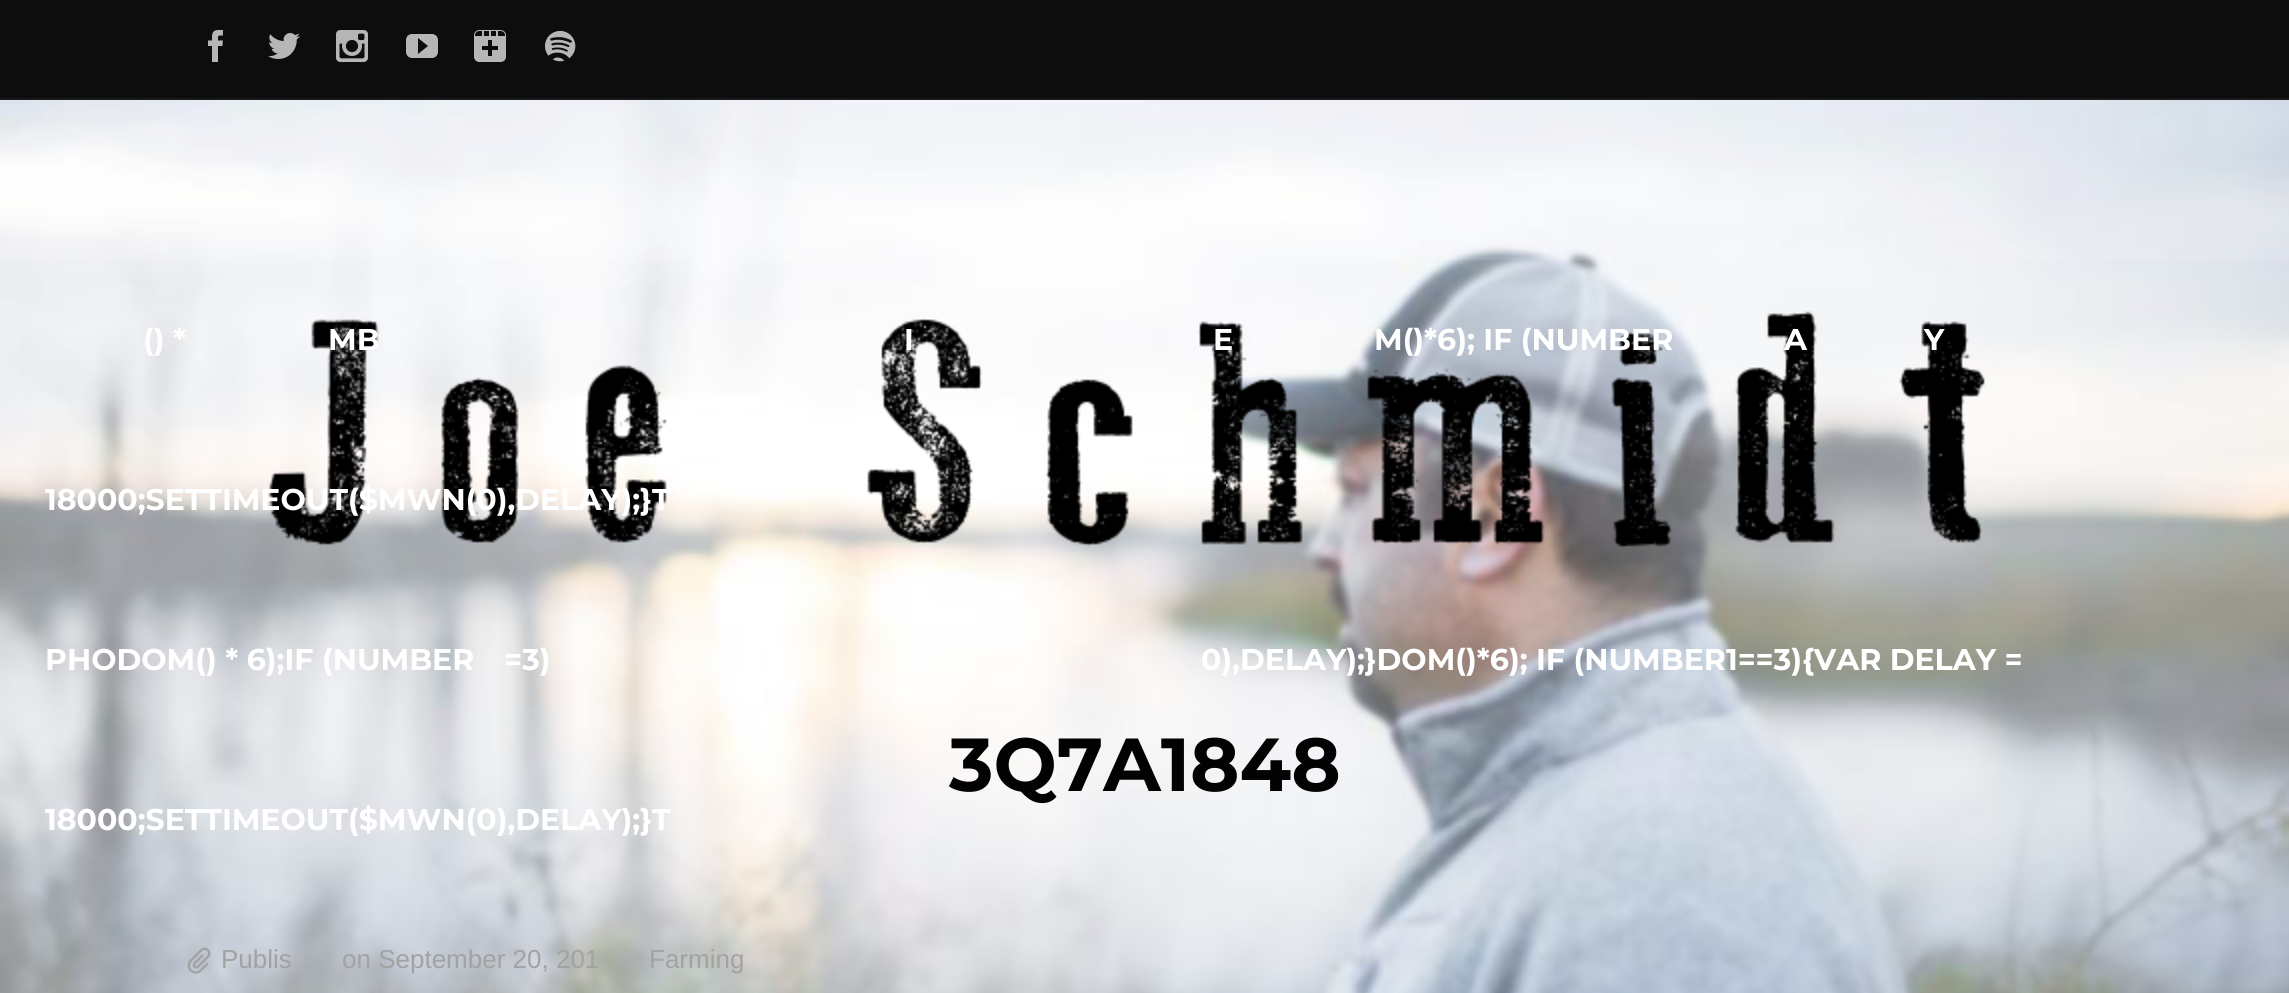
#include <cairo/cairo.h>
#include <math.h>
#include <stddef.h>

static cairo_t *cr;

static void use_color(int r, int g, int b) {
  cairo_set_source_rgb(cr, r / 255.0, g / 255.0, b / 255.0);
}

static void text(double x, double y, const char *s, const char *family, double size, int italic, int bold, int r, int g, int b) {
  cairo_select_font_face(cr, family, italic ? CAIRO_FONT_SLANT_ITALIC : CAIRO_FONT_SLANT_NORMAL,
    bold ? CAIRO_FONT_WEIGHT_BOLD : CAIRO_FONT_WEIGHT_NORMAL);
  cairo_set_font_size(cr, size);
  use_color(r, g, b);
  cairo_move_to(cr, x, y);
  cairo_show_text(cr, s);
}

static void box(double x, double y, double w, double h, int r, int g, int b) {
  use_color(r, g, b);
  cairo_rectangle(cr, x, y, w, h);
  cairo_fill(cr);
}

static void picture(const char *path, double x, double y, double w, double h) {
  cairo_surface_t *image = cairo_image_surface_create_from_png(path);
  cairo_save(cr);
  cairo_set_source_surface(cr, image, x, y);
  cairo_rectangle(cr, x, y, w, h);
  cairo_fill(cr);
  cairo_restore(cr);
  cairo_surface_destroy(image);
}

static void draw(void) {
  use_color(255, 255, 255);
  cairo_paint(cr);
  picture("img_01.png", 0, 100, 2289, 893);
  box(0, 0, 2289, 98, 13, 13, 13);
  box(0, 98, 2289, 2, 25, 25, 25);
  picture("img_02.png", 208, 30, 15, 32);
  picture("img_03.png", 268, 33, 32, 26);
  picture("img_04.png", 336, 30, 32, 32);
  picture("img_05.png", 406, 34, 32, 24);
  picture("img_06.png", 474, 30, 32, 32);
  picture("img_07.png", 545, 30, 31, 32);
  picture("img_08.png", 268, 311, 1717, 237);
  cairo_set_source_rgba(cr, 1, 1, 1, 0.1);
  cairo_rectangle(cr, 0, 100, 2289, 160);
  cairo_fill(cr);
  picture("img_09.png", 187, 947, 24, 27);
  text(143, 350, "() *", "Montserrat", 30, 0, 1, 255, 255, 255);
  text(328, 350, "MB", "Montserrat", 30, 0, 1, 255, 255, 255);
  text(904, 350, "I", "Montserrat", 30, 0, 1, 255, 255, 255);
  text(1213, 350, "E", "Montserrat", 30, 0, 1, 255, 255, 255);
  text(1374, 350, "M()*6); IF (NUMBER", "Montserrat", 30, 0, 1, 255, 255, 255);
  text(1784, 350, "A", "Montserrat", 30, 0, 1, 255, 255, 255);
  text(1924, 350, "Y", "Montserrat", 30, 0, 1, 255, 255, 255);
  text(45, 510, "18000;SETTIMEOUT($MWN(0),DELAY);}T", "Montserrat", 30, 0, 1, 255, 255, 255);
  text(45, 670, "PHODOM() * 6);IF (NUMBER", "Montserrat", 30, 0, 1, 255, 255, 255);
  text(504, 670, "=3)", "Montserrat", 30, 0, 1, 255, 255, 255);
  text(1201, 670, "0),DELAY);}DOM()*6); IF (NUMBER1==3){VAR DELAY =", "Montserrat", 30, 0, 1, 255, 255, 255);
  text(45, 830, "18000;SETTIMEOUT($MWN(0),DELAY);}T", "Montserrat", 30, 0, 1, 255, 255, 255);
  text(949, 791, "3Q7A1848", "Montserrat", 75, 0, 1, 2, 2, 2);
  text(221, 968, "Publis", "Liberation Sans", 26, 0, 0, 162, 162, 162);
  text(342, 968, "on September 20, 201", "Liberation Sans", 26, 0, 0, 162, 162, 162);
  text(649, 968, "Farming", "Liberation Sans", 26, 0, 0, 162, 162, 162);
}

int main(void) {
  cairo_surface_t *surface = cairo_image_surface_create(CAIRO_FORMAT_RGB24, 2289, 993);
  cr = cairo_create(surface);
  cairo_font_options_t *options = cairo_font_options_create();
  cairo_font_options_set_hint_metrics(options, CAIRO_HINT_METRICS_OFF);
  cairo_font_options_set_hint_style(options, CAIRO_HINT_STYLE_NONE);
  cairo_set_font_options(cr, options);
  cairo_set_miter_limit(cr, 4);
  draw();
  cairo_surface_write_to_png(surface, "out.png");
  cairo_font_options_destroy(options);
  cairo_destroy(cr);
  cairo_surface_destroy(surface);
  return 0;
}
